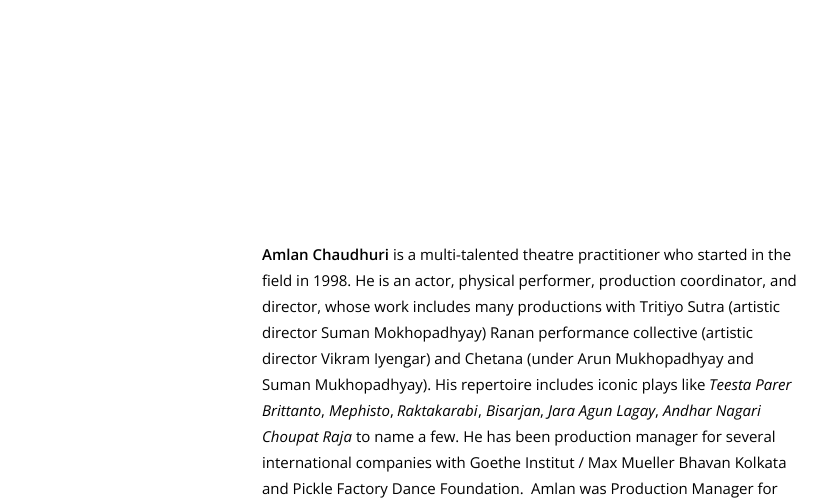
#include <cairo/cairo.h>
#include <math.h>
#include <stddef.h>

static cairo_t *cr;

static void use_color(int r, int g, int b) {
  cairo_set_source_rgb(cr, r / 255.0, g / 255.0, b / 255.0);
}

static void text(double x, double y, const char *s, const char *family, double size, int italic, int bold, int r, int g, int b) {
  cairo_select_font_face(cr, family, italic ? CAIRO_FONT_SLANT_ITALIC : CAIRO_FONT_SLANT_NORMAL,
    bold ? CAIRO_FONT_WEIGHT_BOLD : CAIRO_FONT_WEIGHT_NORMAL);
  cairo_set_font_size(cr, size);
  use_color(r, g, b);
  cairo_move_to(cr, x, y);
  cairo_show_text(cr, s);
}

static void draw(void) {
  use_color(255, 255, 255);
  cairo_paint(cr);
  text(262, 260, "Amlan Chaudhuri", "Open Sans SemiBold", 15, 0, 0, 0, 0, 0);
  text(393, 260, "is a multi-talented theatre practitioner who started in the", "Open Sans", 15, 0, 0, 0, 0, 0);
  text(262, 286, "field in 1998. He is an actor, physical performer, production coordinator, and", "Open Sans", 15, 0, 0, 0, 0, 0);
  text(262, 312, "director, whose work includes many productions with Tritiyo Sutra (artistic", "Open Sans", 15, 0, 0, 0, 0, 0);
  text(262, 338, "director Suman Mokhopadhyay) Ranan performance collective (artistic", "Open Sans", 15, 0, 0, 0, 0, 0);
  text(262, 364, "director Vikram Iyengar) and Chetana (under Arun Mukhopadhyay and", "Open Sans", 15, 0, 0, 0, 0, 0);
  text(262, 390, "Suman Mukhopadhyay). His repertoire includes iconic plays like", "Open Sans", 15, 0, 0, 0, 0, 0);
  text(709, 390, "Teesta Parer", "Open Sans", 15, 1, 0, 0, 0, 0);
  text(262, 416, "Brittanto", "Open Sans", 15, 1, 0, 0, 0, 0);
  text(321, 416, ",", "Open Sans", 15, 0, 0, 0, 0, 0);
  text(329, 416, "Mephisto", "Open Sans", 15, 1, 0, 0, 0, 0);
  text(390, 416, ",", "Open Sans", 15, 0, 0, 0, 0, 0);
  text(397, 416, "Raktakarabi", "Open Sans", 15, 1, 0, 0, 0, 0);
  text(478, 416, ",", "Open Sans", 15, 0, 0, 0, 0, 0);
  text(486, 416, "Bisarjan", "Open Sans", 15, 1, 0, 0, 0, 0);
  text(540, 416, ",", "Open Sans", 15, 0, 0, 0, 0, 0);
  text(548, 416, "Jara Agun Lagay", "Open Sans", 15, 1, 0, 0, 0, 0);
  text(655, 416, ",", "Open Sans", 15, 0, 0, 0, 0, 0);
  text(663, 416, "Andhar Nagari", "Open Sans", 15, 1, 0, 0, 0, 0);
  text(262, 442, "Choupat Raja", "Open Sans", 15, 1, 0, 0, 0, 0);
  text(356, 442, "to name a few. He has been production manager for several", "Open Sans", 15, 0, 0, 0, 0, 0);
  text(262, 468, "international companies with Goethe Institut / Max Mueller Bhavan Kolkata", "Open Sans", 15, 0, 0, 0, 0, 0);
  text(262, 494, "and Pickle Factory Dance Foundation.", "Open Sans", 15, 0, 0, 0, 0, 0);
  text(531, 494, "Amlan was Production Manager for", "Open Sans", 15, 0, 0, 0, 0, 0);
}

int main(void) {
  cairo_surface_t *surface = cairo_image_surface_create(CAIRO_FORMAT_RGB24, 826, 498);
  cr = cairo_create(surface);
  cairo_font_options_t *options = cairo_font_options_create();
  cairo_font_options_set_hint_metrics(options, CAIRO_HINT_METRICS_OFF);
  cairo_font_options_set_hint_style(options, CAIRO_HINT_STYLE_NONE);
  cairo_set_font_options(cr, options);
  cairo_set_miter_limit(cr, 4);
  draw();
  cairo_surface_write_to_png(surface, "out.png");
  cairo_font_options_destroy(options);
  cairo_destroy(cr);
  cairo_surface_destroy(surface);
  return 0;
}
